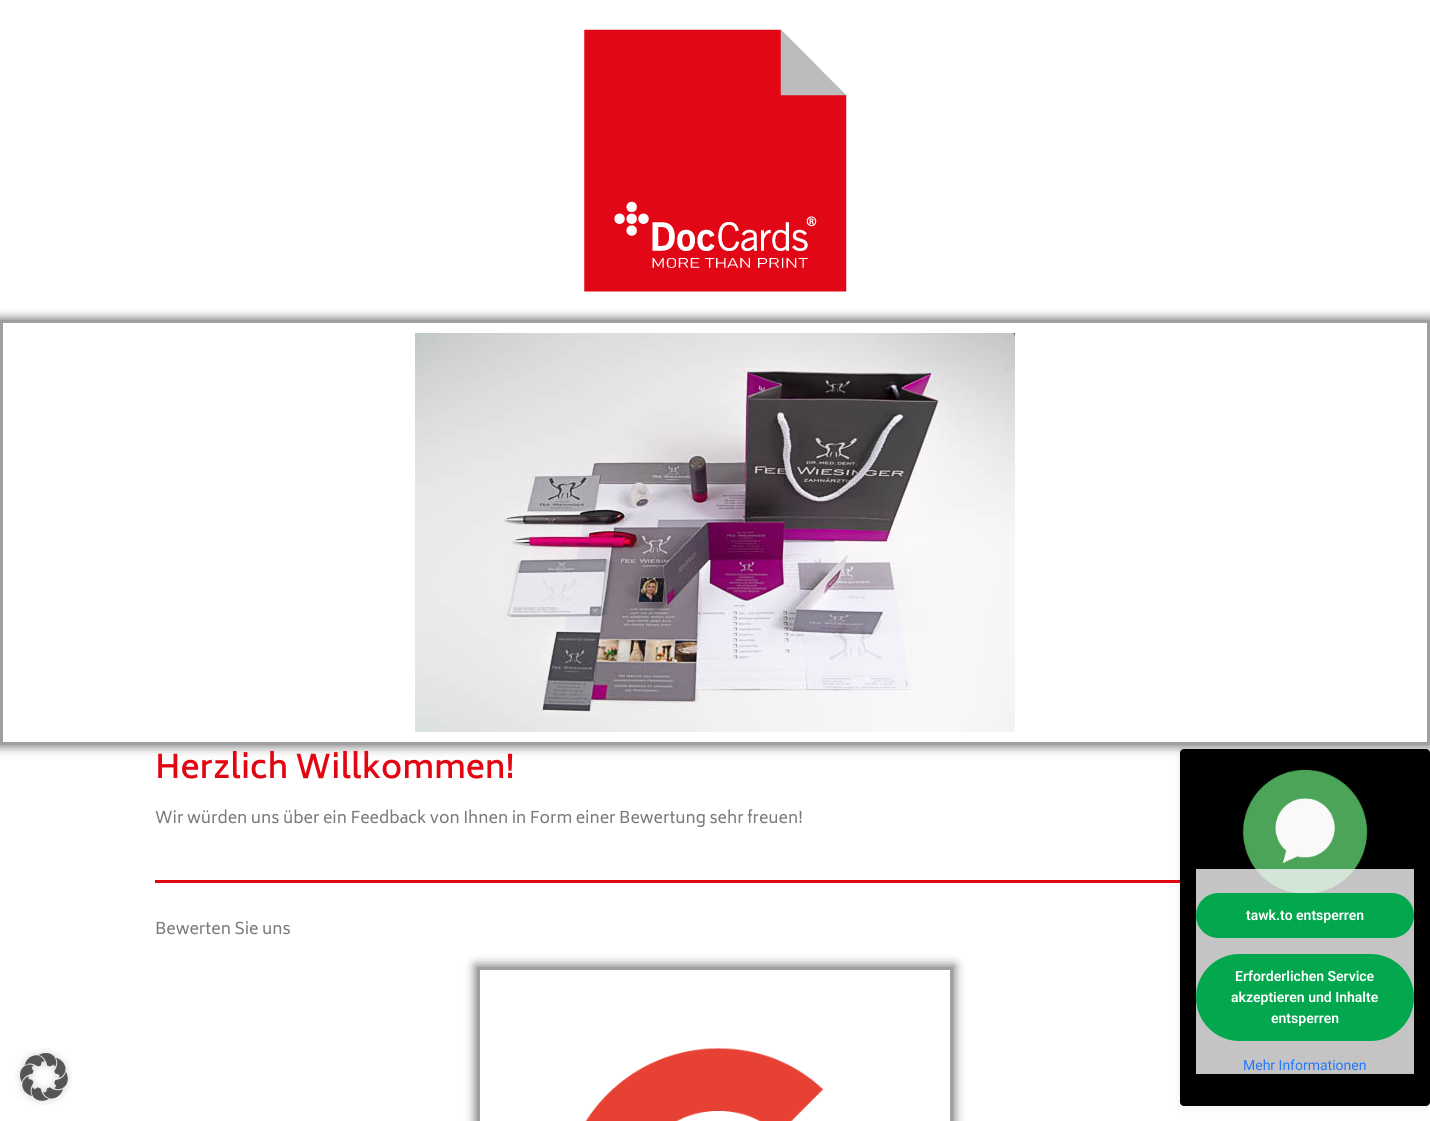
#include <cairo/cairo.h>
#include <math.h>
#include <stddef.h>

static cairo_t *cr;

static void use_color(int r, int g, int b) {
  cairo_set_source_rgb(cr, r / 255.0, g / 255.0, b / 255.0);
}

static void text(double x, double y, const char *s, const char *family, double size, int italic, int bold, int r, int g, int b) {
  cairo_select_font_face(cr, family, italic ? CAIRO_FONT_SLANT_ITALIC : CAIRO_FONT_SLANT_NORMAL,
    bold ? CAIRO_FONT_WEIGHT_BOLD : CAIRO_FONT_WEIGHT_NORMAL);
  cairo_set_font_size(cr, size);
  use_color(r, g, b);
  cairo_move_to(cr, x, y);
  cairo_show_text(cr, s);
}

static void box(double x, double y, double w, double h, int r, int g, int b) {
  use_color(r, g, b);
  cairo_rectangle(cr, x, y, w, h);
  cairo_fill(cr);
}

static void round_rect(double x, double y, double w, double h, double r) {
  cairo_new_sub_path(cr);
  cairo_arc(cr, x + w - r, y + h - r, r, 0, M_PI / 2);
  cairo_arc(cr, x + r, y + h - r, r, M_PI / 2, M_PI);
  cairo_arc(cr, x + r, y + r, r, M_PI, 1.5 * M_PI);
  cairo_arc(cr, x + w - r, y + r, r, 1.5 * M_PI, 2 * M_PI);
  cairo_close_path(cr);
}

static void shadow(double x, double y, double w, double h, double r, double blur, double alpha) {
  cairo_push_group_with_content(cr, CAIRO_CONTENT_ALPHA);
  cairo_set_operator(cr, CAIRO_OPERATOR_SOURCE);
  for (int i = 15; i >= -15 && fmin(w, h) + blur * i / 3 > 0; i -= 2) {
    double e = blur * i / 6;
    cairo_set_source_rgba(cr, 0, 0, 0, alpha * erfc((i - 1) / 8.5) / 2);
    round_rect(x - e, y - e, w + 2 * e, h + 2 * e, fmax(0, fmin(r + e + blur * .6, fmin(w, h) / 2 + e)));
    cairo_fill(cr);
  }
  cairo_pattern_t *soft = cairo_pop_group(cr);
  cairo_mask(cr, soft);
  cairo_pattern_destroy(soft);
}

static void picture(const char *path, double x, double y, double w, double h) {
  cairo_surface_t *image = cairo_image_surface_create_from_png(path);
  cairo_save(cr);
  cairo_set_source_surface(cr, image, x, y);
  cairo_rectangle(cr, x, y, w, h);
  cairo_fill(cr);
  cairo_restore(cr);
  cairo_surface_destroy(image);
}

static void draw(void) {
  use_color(255, 255, 255);
  cairo_paint(cr);
  picture("img_01.png", 584, 29, 263, 263);
  cairo_save(cr);
  cairo_set_fill_rule(cr, CAIRO_FILL_RULE_EVEN_ODD);
  cairo_new_path(cr);
  cairo_move_to(cr, 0, 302);
  cairo_line_to(cr, 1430, 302);
  cairo_line_to(cr, 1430, 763);
  cairo_line_to(cr, 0, 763);
  cairo_close_path(cr);
  cairo_move_to(cr, 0, 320);
  cairo_line_to(cr, 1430, 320);
  cairo_line_to(cr, 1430, 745);
  cairo_line_to(cr, 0, 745);
  cairo_close_path(cr);
  cairo_clip(cr);
  use_color(0, 0, 0);
  shadow(-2, 318, 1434, 429, 0, 5, 0.5);
  cairo_restore(cr);
  cairo_rectangle(cr, 1.5, 321.5, 1427, 422);
  use_color(159, 159, 159);
  cairo_set_line_width(cr, 3);
  cairo_stroke(cr);
  picture("img_02.png", 415, 333, 600, 399);
  box(155, 880, 1025, 3, 226, 6, 19);
  cairo_save(cr);
  cairo_set_fill_rule(cr, CAIRO_FILL_RULE_EVEN_ODD);
  cairo_new_path(cr);
  cairo_move_to(cr, 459, 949);
  cairo_line_to(cr, 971, 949);
  cairo_line_to(cr, 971, 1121);
  cairo_line_to(cr, 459, 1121);
  cairo_close_path(cr);
  cairo_move_to(cr, 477, 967);
  cairo_line_to(cr, 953, 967);
  cairo_line_to(cr, 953, 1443);
  cairo_line_to(cr, 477, 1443);
  cairo_close_path(cr);
  cairo_clip(cr);
  use_color(0, 0, 0);
  shadow(475, 965, 480, 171, 0, 5, 0.5);
  cairo_restore(cr);
  cairo_rectangle(cr, 478.5, 968.5, 473, 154);
  use_color(159, 159, 159);
  cairo_stroke(cr);
  picture("img_03.png", 585, 1047, 239, 74);
  picture("img_04.png", 15, 1048, 57, 57);
  use_color(0, 0, 0);
  shadow(1180, 750, 250, 357, 4, 4, 0.08);
  use_color(0, 0, 0);
  round_rect(1180, 749, 250, 357, 4);
  cairo_fill(cr);
  picture("img_05.png", 1242, 769, 126, 124);
  cairo_set_source_rgba(cr, 0.961, 0.961, 0.961, 0.8);
  cairo_rectangle(cr, 1196, 869, 218, 205);
  cairo_fill(cr);
  use_color(3, 168, 78);
  round_rect(1196, 893, 218, 45, 22.5);
  cairo_fill(cr);
  round_rect(1196, 954, 218, 87, 43.5);
  cairo_fill(cr);
  text(155, 778, "Herzlich Willkommen!", "Biryani SemiBold", 32, 0, 0, 226, 6, 19);
  text(155, 823, "Wir würden uns über ein Feedback von Ihnen in Form einer Bewertung sehr freuen!", "Biryani", 16, 0, 0, 122, 122, 122);
  text(155, 934, "Bewerten Sie uns", "Biryani", 16, 0, 0, 122, 122, 122);
  text(1246, 920, "tawk.to entsperren", "Roboto SemiBold", 14, 0, 0, 255, 255, 255);
  text(1235, 981, "Erforderlichen Service", "Roboto SemiBold", 14, 0, 0, 255, 255, 255);
  text(1231, 1002, "akzeptieren und Inhalte", "Roboto SemiBold", 14, 0, 0, 255, 255, 255);
  text(1271, 1023, "entsperren", "Roboto SemiBold", 14, 0, 0, 255, 255, 255);
  text(1243, 1070, "Mehr Informationen", "Roboto", 14, 0, 0, 34, 119, 255);
}

int main(void) {
  cairo_surface_t *surface = cairo_image_surface_create(CAIRO_FORMAT_RGB24, 1430, 1121);
  cr = cairo_create(surface);
  cairo_font_options_t *options = cairo_font_options_create();
  cairo_font_options_set_hint_metrics(options, CAIRO_HINT_METRICS_OFF);
  cairo_font_options_set_hint_style(options, CAIRO_HINT_STYLE_NONE);
  cairo_set_font_options(cr, options);
  cairo_set_miter_limit(cr, 4);
  draw();
  cairo_surface_write_to_png(surface, "out.png");
  cairo_font_options_destroy(options);
  cairo_destroy(cr);
  cairo_surface_destroy(surface);
  return 0;
}
